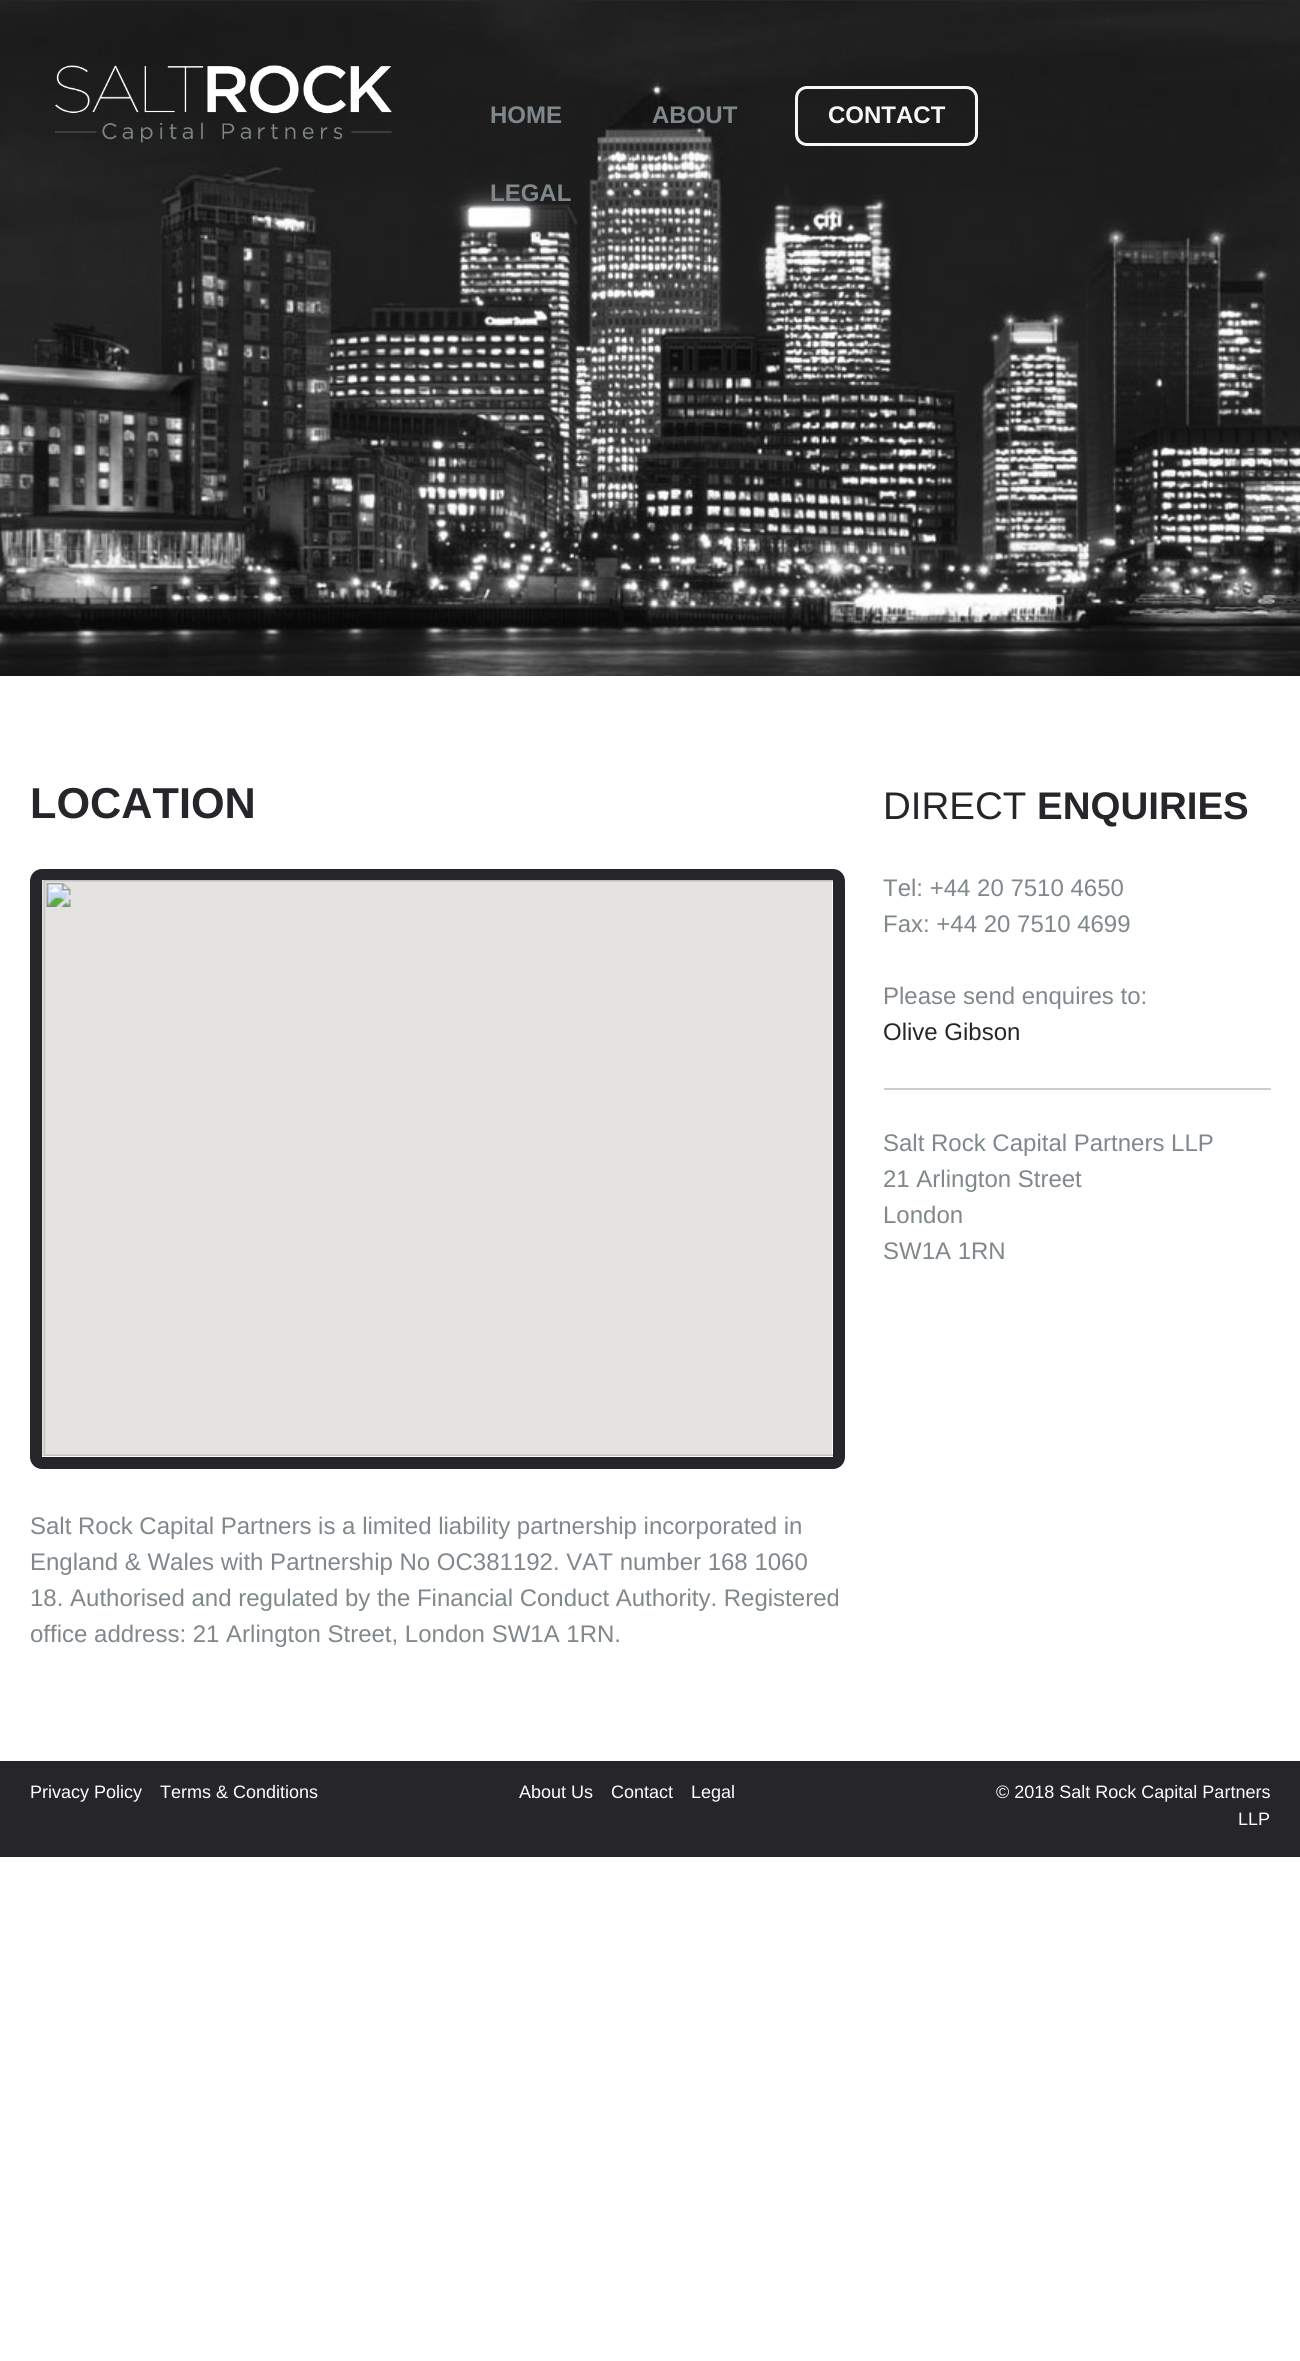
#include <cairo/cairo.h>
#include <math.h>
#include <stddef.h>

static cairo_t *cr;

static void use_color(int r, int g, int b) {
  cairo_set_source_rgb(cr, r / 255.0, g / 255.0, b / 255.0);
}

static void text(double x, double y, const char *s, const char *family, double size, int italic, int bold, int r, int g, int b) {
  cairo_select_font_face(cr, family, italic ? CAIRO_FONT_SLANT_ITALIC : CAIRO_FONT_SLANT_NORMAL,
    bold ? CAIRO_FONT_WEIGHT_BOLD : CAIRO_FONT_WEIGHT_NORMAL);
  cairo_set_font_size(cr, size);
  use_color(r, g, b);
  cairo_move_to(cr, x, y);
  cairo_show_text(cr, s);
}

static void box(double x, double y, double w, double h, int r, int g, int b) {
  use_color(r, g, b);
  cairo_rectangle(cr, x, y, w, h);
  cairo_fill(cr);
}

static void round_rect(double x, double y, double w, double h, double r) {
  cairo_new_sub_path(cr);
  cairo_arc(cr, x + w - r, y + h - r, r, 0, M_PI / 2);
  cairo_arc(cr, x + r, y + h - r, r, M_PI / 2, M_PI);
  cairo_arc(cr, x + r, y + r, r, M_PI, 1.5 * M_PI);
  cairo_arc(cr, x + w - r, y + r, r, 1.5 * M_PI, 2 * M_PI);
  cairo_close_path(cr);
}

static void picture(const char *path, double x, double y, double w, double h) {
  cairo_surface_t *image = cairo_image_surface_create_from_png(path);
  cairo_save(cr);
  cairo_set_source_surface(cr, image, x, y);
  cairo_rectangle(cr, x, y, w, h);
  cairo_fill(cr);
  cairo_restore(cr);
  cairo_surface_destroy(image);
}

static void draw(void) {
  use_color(255, 255, 255);
  cairo_paint(cr);
  box(0, 0, 1300, 1, 38, 38, 42);
  picture("img_01.png", 0, 1, 1300, 675);
  picture("img_02.png", 55, 65, 337, 78);
  round_rect(796.5, 87.5, 180, 57, 10.5);
  use_color(247, 247, 247);
  cairo_set_line_width(cr, 3);
  cairo_stroke(cr);
  round_rect(36, 875, 803, 588, 6);
  use_color(38, 38, 42);
  cairo_set_line_width(cr, 12);
  cairo_stroke(cr);
  picture("img_03.png", 42, 880, 791, 576);
  box(884, 1088, 387, 2, 204, 204, 204);
  box(0, 1761, 1300, 96, 38, 38, 42);
  text(490, 123, "HOME", "Liberation Sans", 24, 0, 1, 128, 136, 140);
  text(652, 123, "ABOUT", "Liberation Sans", 24, 0, 1, 128, 136, 140);
  text(828, 123, "CONTACT", "Liberation Sans", 24, 0, 1, 247, 247, 247);
  text(490, 201, "LEGAL", "Liberation Sans", 24, 0, 1, 128, 136, 140);
  text(30, 818, "LOCATION", "Liberation Sans", 43.25, 0, 1, 38, 38, 42);
  text(30, 1534, "Salt Rock Capital Partners is a limited liability partnership incorporated in", "Liberation Sans", 24, 0, 0, 128, 136, 140);
  text(30, 1570, "England & Wales with Partnership No OC381192. VAT number 168 1060", "Liberation Sans", 24, 0, 0, 128, 136, 140);
  text(30, 1606, "18. Authorised and regulated by the Financial Conduct Authority. Registered", "Liberation Sans", 24, 0, 0, 128, 136, 140);
  text(30, 1642, "office address: 21 Arlington Street, London SW1A 1RN.", "Liberation Sans", 24, 0, 0, 128, 136, 140);
  text(883, 819, "DIRECT", "Liberation Sans", 38.5, 0, 0, 38, 38, 42);
  text(1037, 819, "ENQUIRIES", "Liberation Sans", 38.5, 0, 1, 38, 38, 42);
  text(883, 896, "Tel: +44 20 7510 4650", "Liberation Sans", 24, 0, 0, 128, 136, 140);
  text(883, 932, "Fax: +44 20 7510 4699", "Liberation Sans", 24, 0, 0, 128, 136, 140);
  text(883, 1004, "Please send enquires to:", "Liberation Sans", 24, 0, 0, 128, 136, 140);
  text(883, 1040, "Olive Gibson", "Liberation Sans", 24, 0, 0, 38, 38, 42);
  text(883, 1151, "Salt Rock Capital Partners LLP", "Liberation Sans", 24, 0, 0, 128, 136, 140);
  text(883, 1187, "21 Arlington Street", "Liberation Sans", 24, 0, 0, 128, 136, 140);
  text(883, 1223, "London", "Liberation Sans", 24, 0, 0, 128, 136, 140);
  text(883, 1259, "SW1A 1RN", "Liberation Sans", 24, 0, 0, 128, 136, 140);
  text(30, 1798, "Privacy Policy", "Liberation Sans", 18, 0, 0, 255, 255, 255);
  text(160, 1798, "Terms & Conditions", "Liberation Sans", 18, 0, 0, 255, 255, 255);
  text(519, 1798, "About Us", "Liberation Sans", 18, 0, 0, 255, 255, 255);
  text(611, 1798, "Contact", "Liberation Sans", 18, 0, 0, 255, 255, 255);
  text(691, 1798, "Legal", "Liberation Sans", 18, 0, 0, 255, 255, 255);
  text(996, 1798, "© 2018 Salt Rock Capital Partners", "Liberation Sans", 18, 0, 0, 255, 255, 255);
  text(1238, 1825, "LLP", "Liberation Sans", 18, 0, 0, 255, 255, 255);
}

int main(void) {
  cairo_surface_t *surface = cairo_image_surface_create(CAIRO_FORMAT_RGB24, 1300, 2361);
  cr = cairo_create(surface);
  cairo_font_options_t *options = cairo_font_options_create();
  cairo_font_options_set_hint_metrics(options, CAIRO_HINT_METRICS_OFF);
  cairo_font_options_set_hint_style(options, CAIRO_HINT_STYLE_NONE);
  cairo_set_font_options(cr, options);
  cairo_set_miter_limit(cr, 4);
  draw();
  cairo_surface_write_to_png(surface, "out.png");
  cairo_font_options_destroy(options);
  cairo_destroy(cr);
  cairo_surface_destroy(surface);
  return 0;
}
